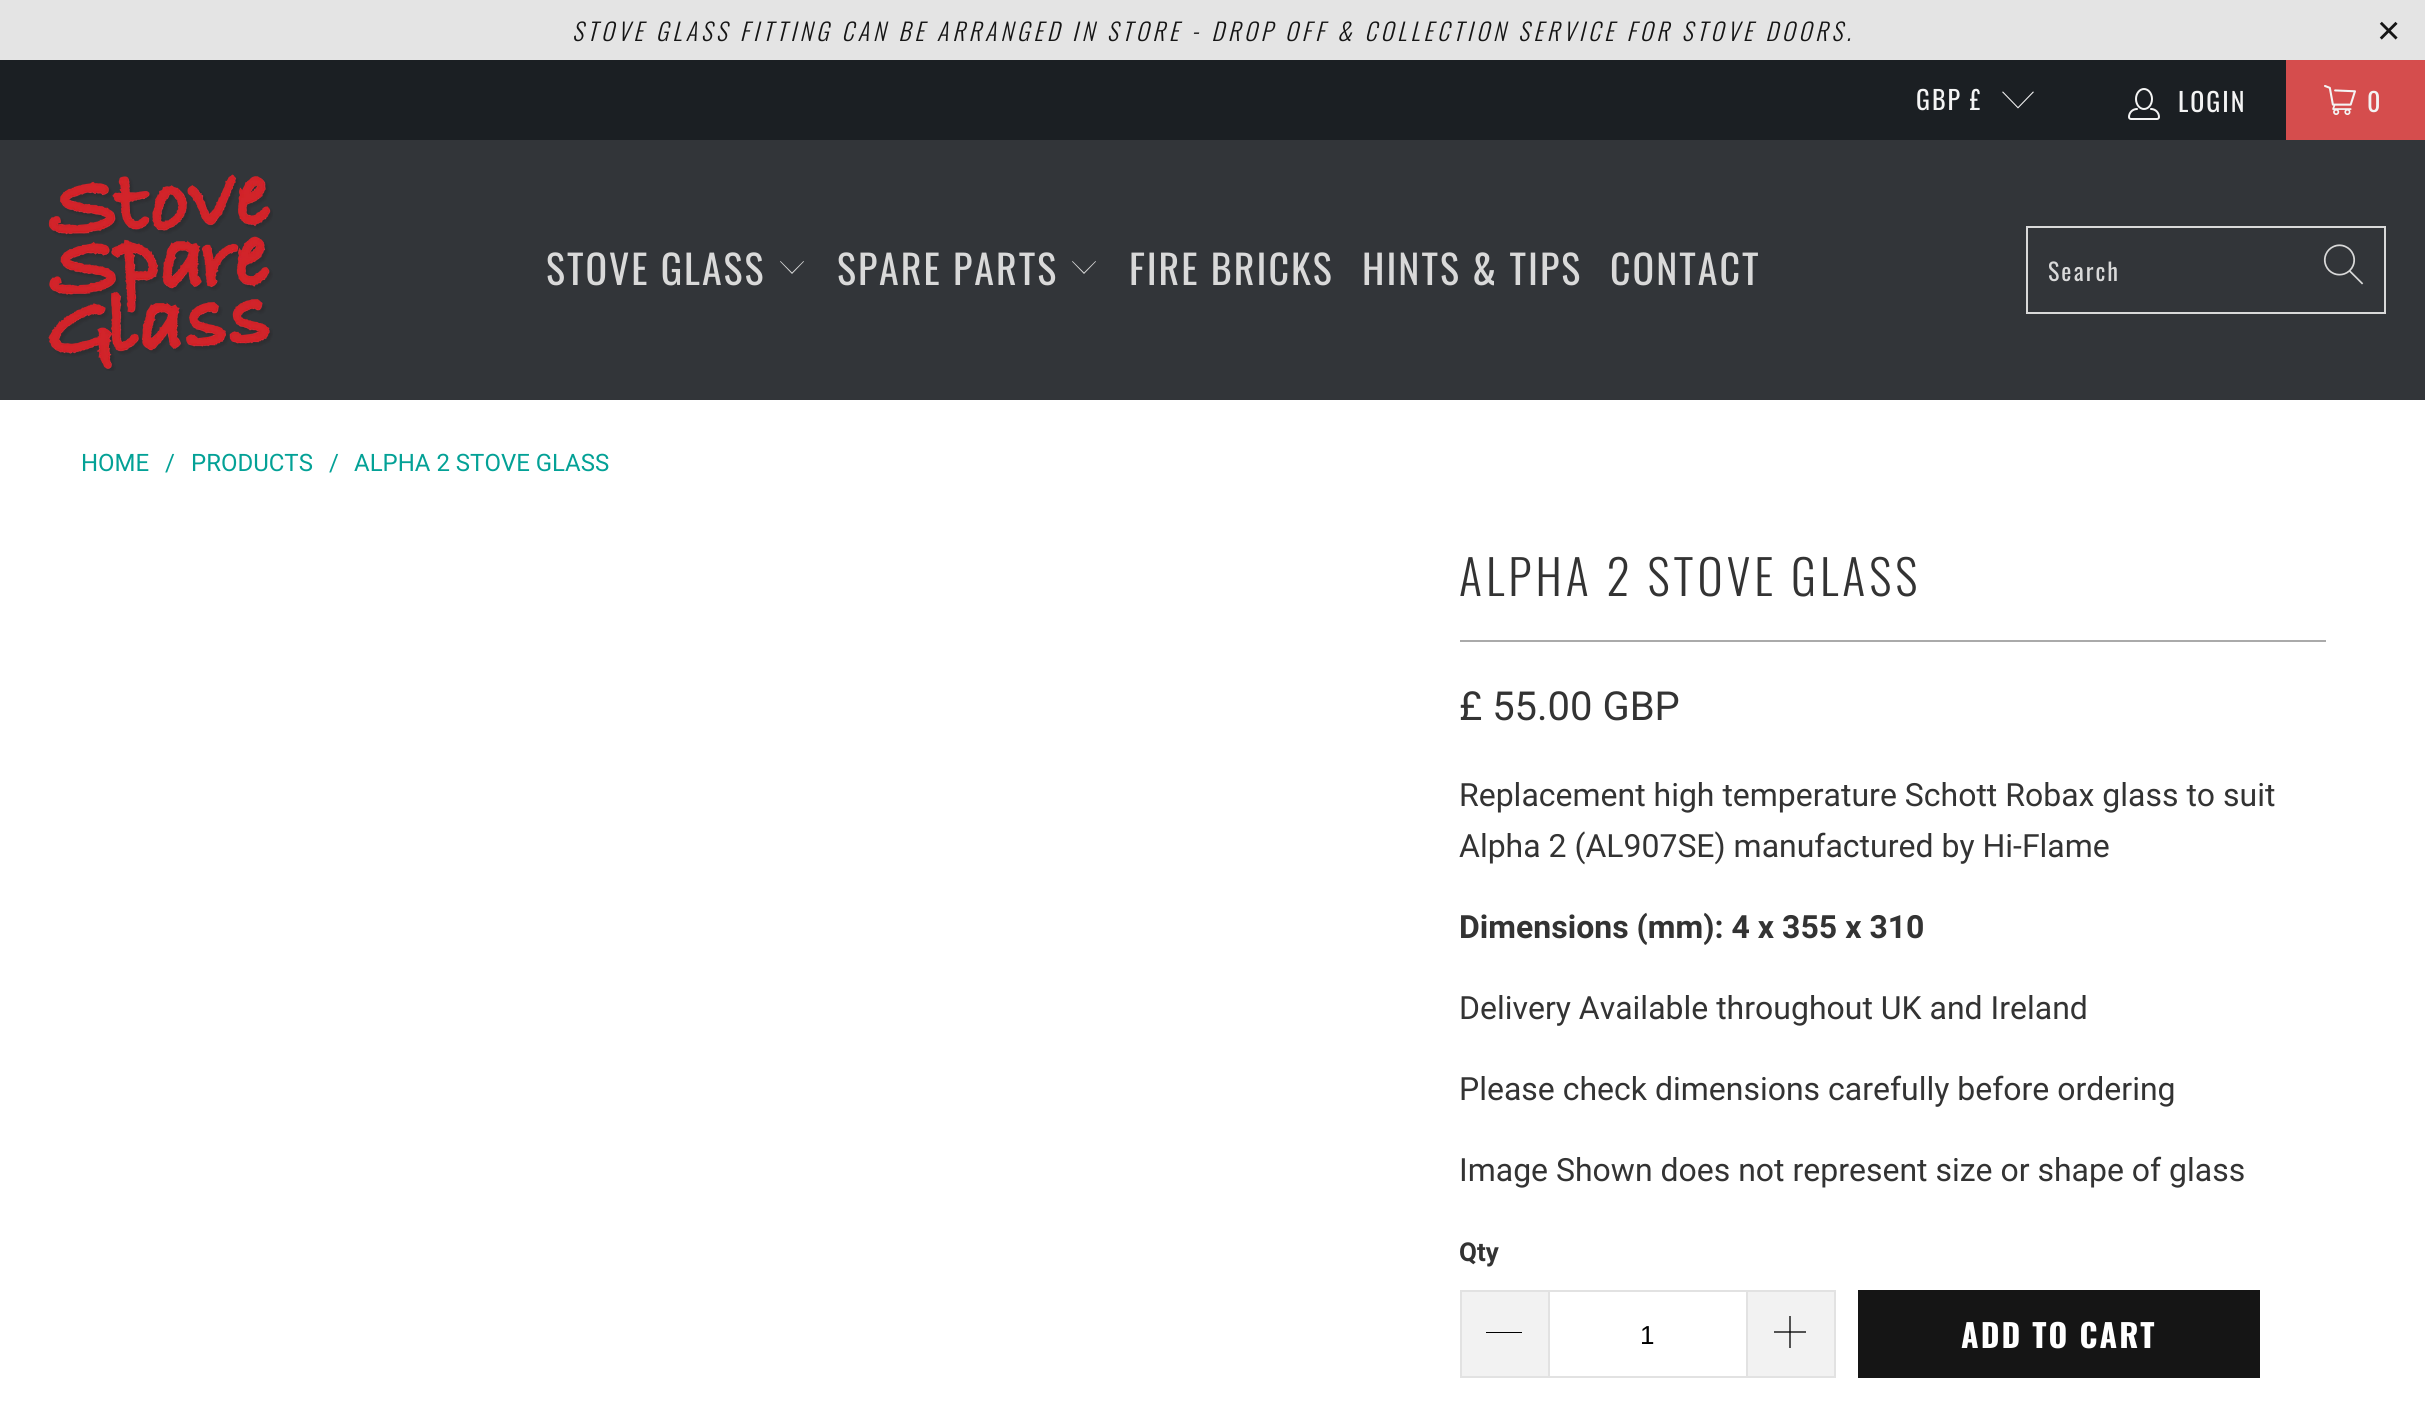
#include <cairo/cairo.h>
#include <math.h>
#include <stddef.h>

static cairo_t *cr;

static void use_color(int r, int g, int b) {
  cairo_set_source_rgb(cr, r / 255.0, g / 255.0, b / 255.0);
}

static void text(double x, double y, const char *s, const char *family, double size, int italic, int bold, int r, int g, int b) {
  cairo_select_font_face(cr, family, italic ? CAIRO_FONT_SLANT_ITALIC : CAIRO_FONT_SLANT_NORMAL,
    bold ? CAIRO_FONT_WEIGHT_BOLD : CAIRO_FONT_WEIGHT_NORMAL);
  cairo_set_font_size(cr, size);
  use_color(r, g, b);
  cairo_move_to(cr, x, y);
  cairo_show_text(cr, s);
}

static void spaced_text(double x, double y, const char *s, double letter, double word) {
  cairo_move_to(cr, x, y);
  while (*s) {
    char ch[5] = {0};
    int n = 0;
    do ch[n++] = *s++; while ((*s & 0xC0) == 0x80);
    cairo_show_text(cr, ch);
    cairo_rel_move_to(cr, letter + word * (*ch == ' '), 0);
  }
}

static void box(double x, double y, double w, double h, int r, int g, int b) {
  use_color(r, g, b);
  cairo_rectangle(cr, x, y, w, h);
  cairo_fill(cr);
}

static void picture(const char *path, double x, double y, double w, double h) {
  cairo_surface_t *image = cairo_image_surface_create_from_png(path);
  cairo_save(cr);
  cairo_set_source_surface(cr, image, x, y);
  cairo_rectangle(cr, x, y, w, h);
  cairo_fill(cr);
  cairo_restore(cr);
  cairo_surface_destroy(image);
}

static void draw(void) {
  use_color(255, 255, 255);
  cairo_paint(cr);
  box(0, 0, 2425, 60, 228, 228, 228);
  box(0, 60, 2286, 80, 27, 31, 35);
  use_color(244, 244, 244);
  cairo_new_path(cr);
  cairo_move_to(cr, 2018, 108.5);
  cairo_line_to(cr, 2002, 92);
  cairo_line_to(cr, 2003, 91.5);
  cairo_line_to(cr, 2018, 107);
  cairo_line_to(cr, 2033, 91.5);
  cairo_line_to(cr, 2034, 92);
  cairo_close_path(cr);
  cairo_fill(cr);
  picture("img_01.png", 2128, 88, 32, 32);
  box(2286, 60, 139, 80, 213, 77, 77);
  picture("img_02.png", 2324, 85, 32, 30);
  box(0, 140, 2425, 260, 50, 53, 57);
  picture("img_03.png", 48, 174, 225, 197);
  use_color(217, 217, 217);
  cairo_new_path(cr);
  cairo_move_to(cr, 792, 274);
  cairo_line_to(cr, 780, 261.5);
  cairo_line_to(cr, 780.5, 261);
  cairo_line_to(cr, 792, 272.5);
  cairo_line_to(cr, 803.5, 261);
  cairo_line_to(cr, 804, 261.5);
  cairo_close_path(cr);
  cairo_fill(cr);
  cairo_new_path(cr);
  cairo_move_to(cr, 1084, 274);
  cairo_line_to(cr, 1072, 261.5);
  cairo_line_to(cr, 1072.5, 261);
  cairo_line_to(cr, 1084, 272.5);
  cairo_line_to(cr, 1095.5, 261);
  cairo_line_to(cr, 1096, 261.5);
  cairo_close_path(cr);
  cairo_fill(cr);
  cairo_rectangle(cr, 2027, 227, 358, 86);
  cairo_stroke(cr);
  picture("img_04.png", 2323, 244, 41, 41);
  box(1460, 640, 866, 2, 170, 170, 170);
  box(1462, 1292, 86, 84, 242, 242, 242);
  box(1460, 1290, 88, 2, 226, 226, 226);
  box(1460, 1376, 88, 2, 226, 226, 226);
  box(1460, 1290, 2, 88, 226, 226, 226);
  box(1486, 1332, 36, 1, 0, 0, 0);
  cairo_rectangle(cr, 1549, 1291, 198, 86);
  use_color(226, 226, 226);
  cairo_stroke(cr);
  box(1748, 1292, 86, 84, 242, 242, 242);
  box(1748, 1290, 88, 2, 226, 226, 226);
  box(1834, 1290, 2, 88, 226, 226, 226);
  box(1748, 1376, 88, 2, 226, 226, 226);
  picture("img_05.png", 1774, 1316, 32, 32);
  box(1858, 1290, 402, 88, 21, 21, 21);
  cairo_select_font_face(cr, "Oswald Light", CAIRO_FONT_SLANT_ITALIC, CAIRO_FONT_WEIGHT_NORMAL);
  cairo_set_font_size(cr, 24);
  spaced_text(572, 41, "STOVE GLASS FITTING CAN BE ARRANGED IN STORE - DROP OFF & COLLECTION SERVICE FOR STOVE DOORS.", 4, 0);
  cairo_select_font_face(cr, "Liberation Sans", CAIRO_FONT_SLANT_NORMAL, CAIRO_FONT_WEIGHT_NORMAL);
  cairo_set_font_size(cr, 40);
  spaced_text(2377, 44, "×", 4, 0);
  cairo_select_font_face(cr, "Oswald", CAIRO_FONT_SLANT_NORMAL, CAIRO_FONT_WEIGHT_NORMAL);
  cairo_set_font_size(cr, 26);
  use_color(244, 244, 244);
  spaced_text(1916, 110, "GBP £", 2, 0);
  spaced_text(2178, 112, "LOGIN", 2, 0);
  spaced_text(2367, 112, "0", 2, 0);
  cairo_set_font_size(cr, 40);
  use_color(217, 217, 217);
  spaced_text(546, 285, "STOVE GLASS", 2, 0);
  spaced_text(837, 285, "SPARE PARTS", 2, 0);
  spaced_text(1129, 285, "FIRE BRICKS", 2, 0);
  spaced_text(1362, 285, "HINTS & TIPS", 2, 0);
  spaced_text(1610, 285, "CONTACT", 2, 0);
  cairo_set_font_size(cr, 24);
  spaced_text(2048, 281, "Search", 2, 0);
  text(81, 471, "HOME", "Roboto", 24, 0, 0, 3, 161, 150);
  text(165, 471, "/", "Roboto", 24, 0, 0, 3, 161, 150);
  text(191, 471, "PRODUCTS", "Roboto", 24, 0, 0, 3, 161, 150);
  text(329, 471, "/", "Roboto", 24, 0, 0, 3, 161, 150);
  text(354, 471, "ALPHA 2 STOVE GLASS", "Roboto", 24, 0, 0, 3, 161, 150);
  cairo_select_font_face(cr, "Oswald Light", CAIRO_FONT_SLANT_NORMAL, CAIRO_FONT_WEIGHT_NORMAL);
  cairo_set_font_size(cr, 48);
  use_color(51, 51, 51);
  spaced_text(1459, 596, "ALPHA 2 STOVE GLASS", 4, 0);
  text(1459, 720, "£ 55.00 GBP", "Roboto", 40, 0, 0, 51, 51, 51);
  text(1459, 806, "Replacement high temperature Schott Robax glass to suit", "Roboto", 32, 0, 0, 51, 51, 51);
  text(1459, 857, "Alpha 2 (AL907SE) manufactured by Hi-Flame", "Roboto", 32, 0, 0, 51, 51, 51);
  text(1459, 938, "Dimensions (mm): 4 x 355 x 310", "Roboto", 32, 0, 1, 51, 51, 51);
  text(1459, 1019, "Delivery Available throughout UK and Ireland", "Roboto", 32, 0, 0, 51, 51, 51);
  text(1459, 1100, "Please check dimensions carefully before ordering", "Roboto", 32, 0, 0, 51, 51, 51);
  text(1459, 1181, "Image Shown does not represent size or shape of glass", "Roboto", 32, 0, 0, 51, 51, 51);
  text(1459, 1261, "Qty", "Roboto", 26, 0, 1, 51, 51, 51);
  text(1640, 1344, "1", "Liberation Sans", 26, 0, 0, 0, 0, 0);
  cairo_select_font_face(cr, "Oswald", CAIRO_FONT_SLANT_NORMAL, CAIRO_FONT_WEIGHT_BOLD);
  cairo_set_font_size(cr, 32);
  use_color(255, 255, 255);
  spaced_text(1961, 1348, "ADD TO CART", 2, 0);
}

int main(void) {
  cairo_surface_t *surface = cairo_image_surface_create(CAIRO_FORMAT_RGB24, 2425, 1418);
  cr = cairo_create(surface);
  cairo_font_options_t *options = cairo_font_options_create();
  cairo_font_options_set_hint_metrics(options, CAIRO_HINT_METRICS_OFF);
  cairo_font_options_set_hint_style(options, CAIRO_HINT_STYLE_NONE);
  cairo_set_font_options(cr, options);
  cairo_set_miter_limit(cr, 4);
  draw();
  cairo_surface_write_to_png(surface, "out.png");
  cairo_font_options_destroy(options);
  cairo_destroy(cr);
  cairo_surface_destroy(surface);
  return 0;
}
